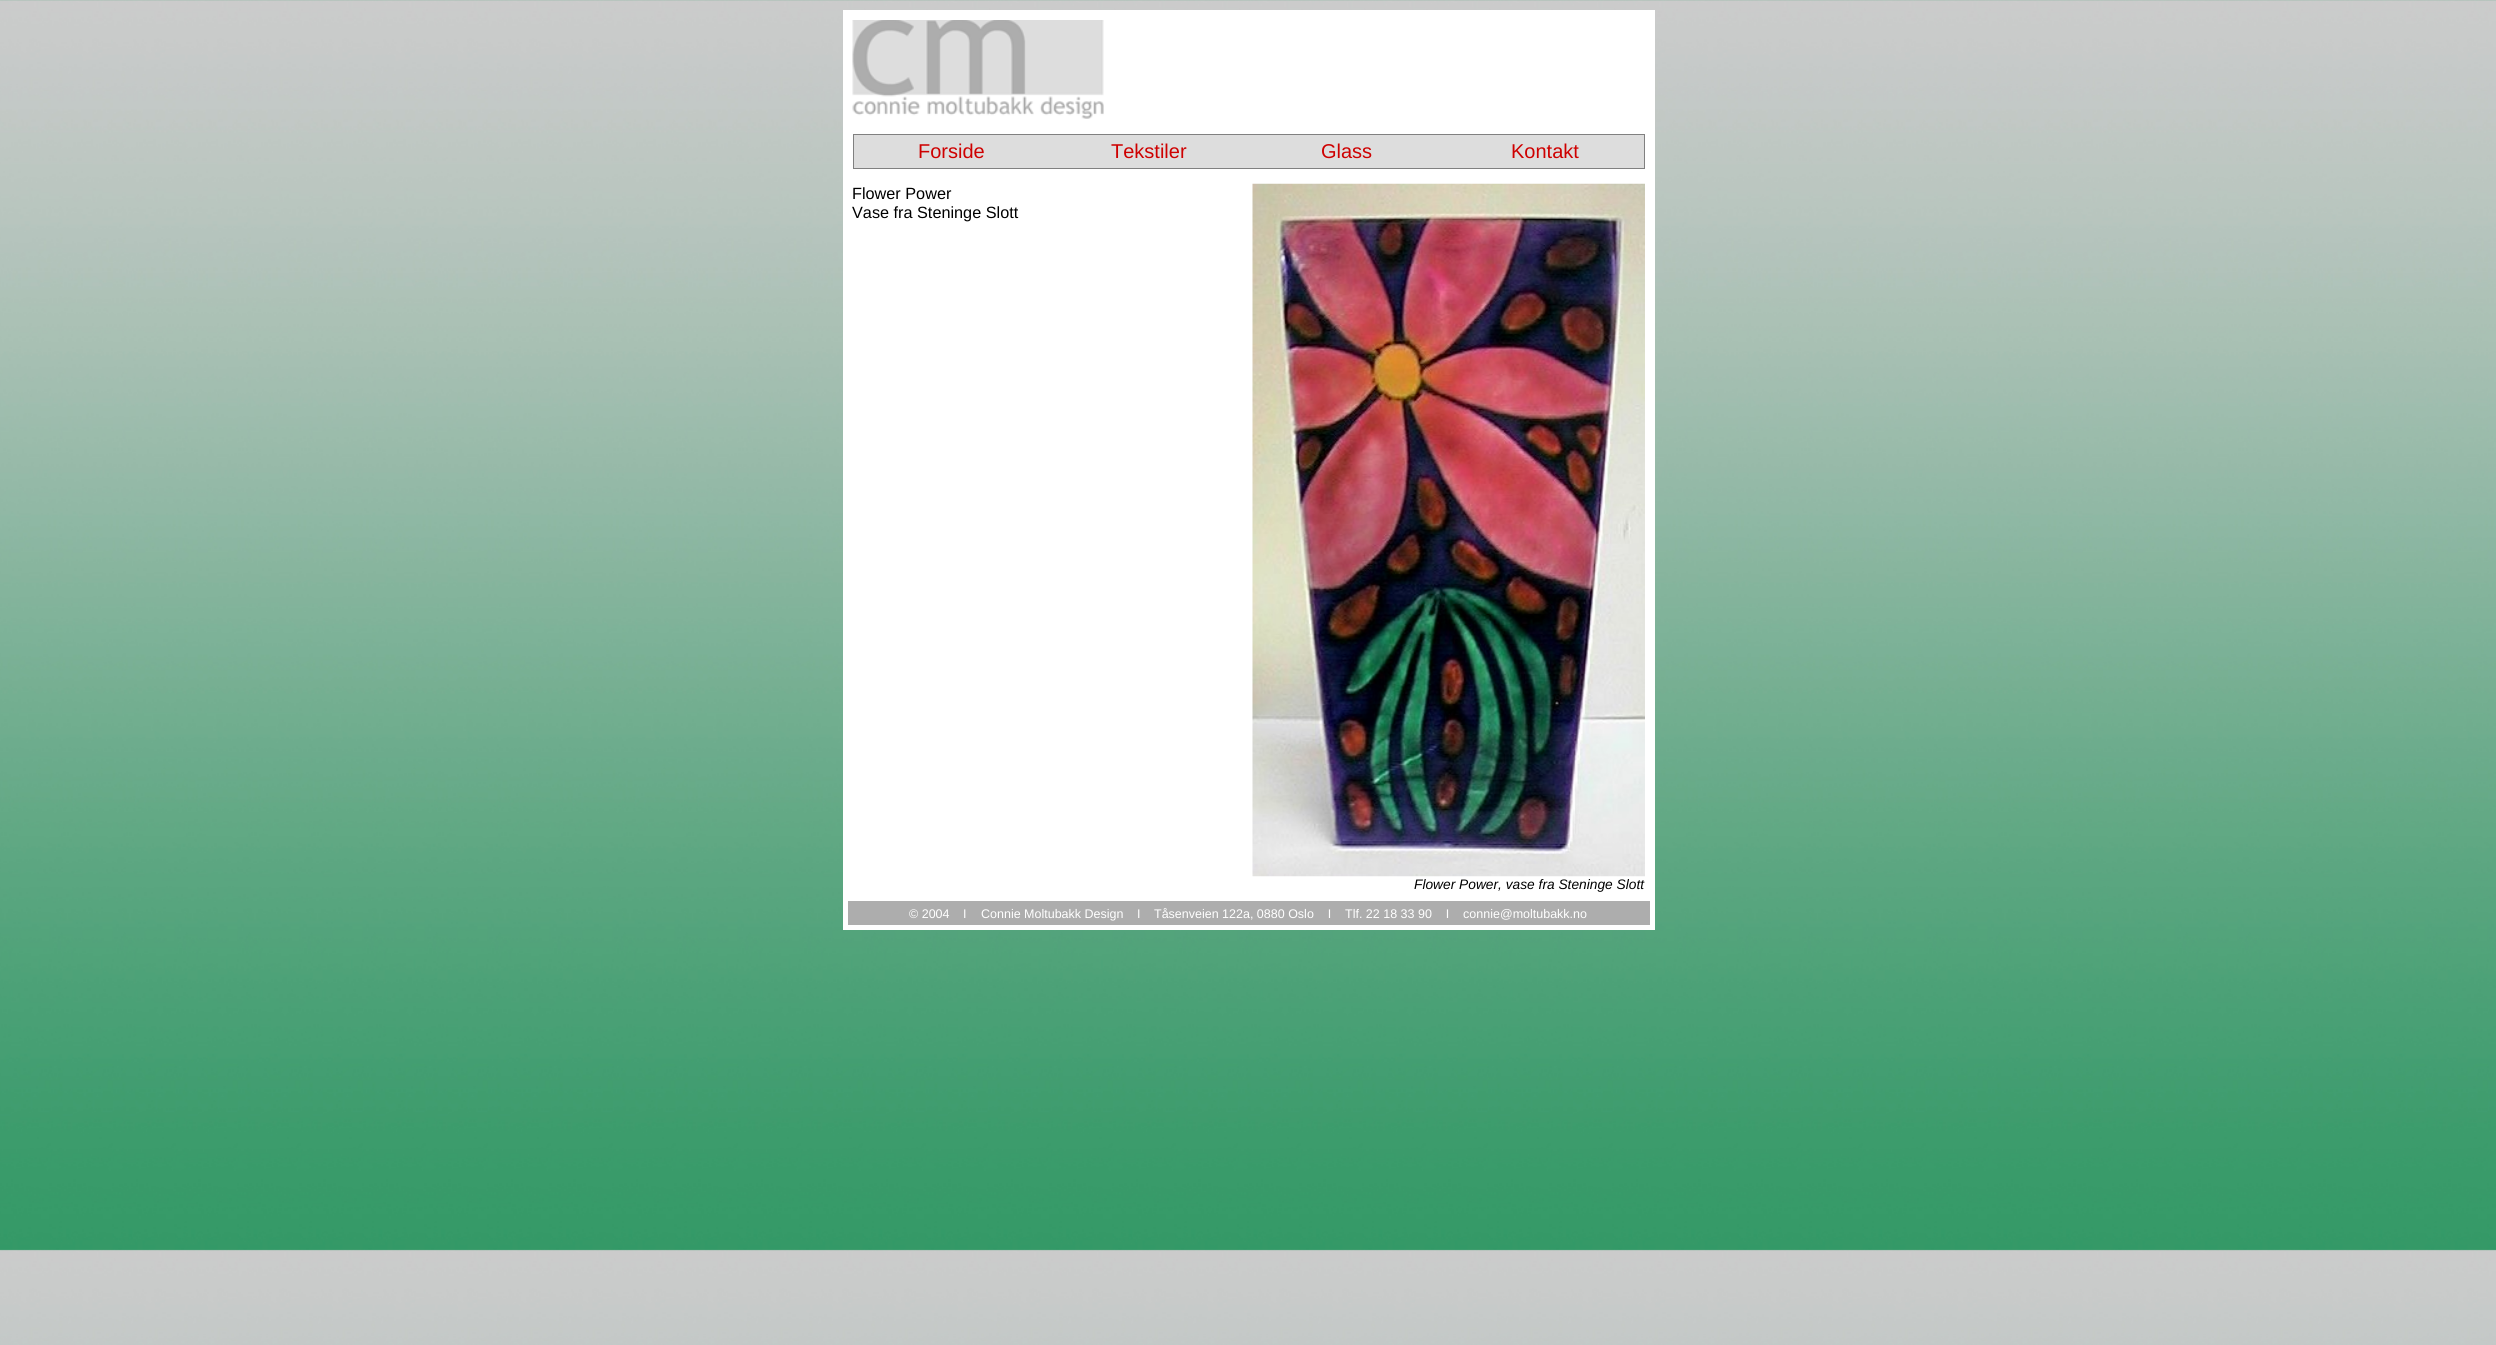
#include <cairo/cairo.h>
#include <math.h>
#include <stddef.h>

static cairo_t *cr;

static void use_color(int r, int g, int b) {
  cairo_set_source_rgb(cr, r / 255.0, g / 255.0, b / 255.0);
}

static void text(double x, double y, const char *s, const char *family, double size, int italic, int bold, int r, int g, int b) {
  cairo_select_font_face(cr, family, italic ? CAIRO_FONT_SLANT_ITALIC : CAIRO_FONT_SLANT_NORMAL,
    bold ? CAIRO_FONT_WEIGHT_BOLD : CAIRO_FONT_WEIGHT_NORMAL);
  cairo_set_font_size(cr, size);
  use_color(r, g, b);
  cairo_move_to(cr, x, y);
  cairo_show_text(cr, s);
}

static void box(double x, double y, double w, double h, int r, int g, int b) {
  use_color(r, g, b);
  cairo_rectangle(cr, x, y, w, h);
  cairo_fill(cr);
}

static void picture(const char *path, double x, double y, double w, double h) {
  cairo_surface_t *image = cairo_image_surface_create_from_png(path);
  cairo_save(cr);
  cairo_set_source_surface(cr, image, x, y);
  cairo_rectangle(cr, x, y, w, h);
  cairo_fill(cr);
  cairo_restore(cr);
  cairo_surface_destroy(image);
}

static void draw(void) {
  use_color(255, 255, 255);
  cairo_paint(cr);
  picture("img_01.png", 0, 0, 2496, 1345);
  box(843, 10, 812, 920, 255, 255, 255);
  picture("img_02.png", 852, 20, 252, 99);
  box(853, 134, 792, 35, 128, 128, 128);
  box(854, 135, 790, 33, 221, 221, 221);
  picture("img_03.png", 1252, 183, 393, 694);
  box(848, 901, 802, 24, 173, 173, 173);
  text(918, 158, "Forside", "Liberation Sans", 20, 0, 0, 206, 0, 0);
  text(1111, 158, "Tekstiler", "Liberation Sans", 20, 0, 0, 206, 0, 0);
  text(1321, 158, "Glass", "Liberation Sans", 20, 0, 0, 206, 0, 0);
  text(1511, 158, "Kontakt", "Liberation Sans", 20, 0, 0, 206, 0, 0);
  text(852, 199, "Flower Power", "Liberation Sans", 16.25, 0, 0, 0, 0, 0);
  text(852, 218, "Vase fra Steninge Slott", "Liberation Sans", 16.25, 0, 0, 0, 0, 0);
  text(1414, 889, "Flower Power, vase fra Steninge Slott", "Liberation Sans", 13.75, 1, 0, 0, 0, 0);
  text(909, 918, "© 2004", "Liberation Sans", 12.5, 0, 0, 255, 255, 255);
  text(963, 918, "I", "Liberation Sans", 12.5, 0, 0, 255, 255, 255);
  text(981, 918, "Connie Moltubakk Design", "Liberation Sans", 12.5, 0, 0, 255, 255, 255);
  text(1137, 918, "I", "Liberation Sans", 12.5, 0, 0, 255, 255, 255);
  text(1154, 918, "Tåsenveien 122a, 0880 Oslo    I", "Liberation Sans", 12.5, 0, 0, 255, 255, 255);
  text(1345, 918, "Tlf. 22 18 33 90    I    connie@moltubakk.no", "Liberation Sans", 12.5, 0, 0, 255, 255, 255);
}

int main(void) {
  cairo_surface_t *surface = cairo_image_surface_create(CAIRO_FORMAT_RGB24, 2496, 1345);
  cr = cairo_create(surface);
  cairo_font_options_t *options = cairo_font_options_create();
  cairo_font_options_set_hint_metrics(options, CAIRO_HINT_METRICS_OFF);
  cairo_font_options_set_hint_style(options, CAIRO_HINT_STYLE_NONE);
  cairo_set_font_options(cr, options);
  cairo_set_miter_limit(cr, 4);
  draw();
  cairo_surface_write_to_png(surface, "out.png");
  cairo_font_options_destroy(options);
  cairo_destroy(cr);
  cairo_surface_destroy(surface);
  return 0;
}
